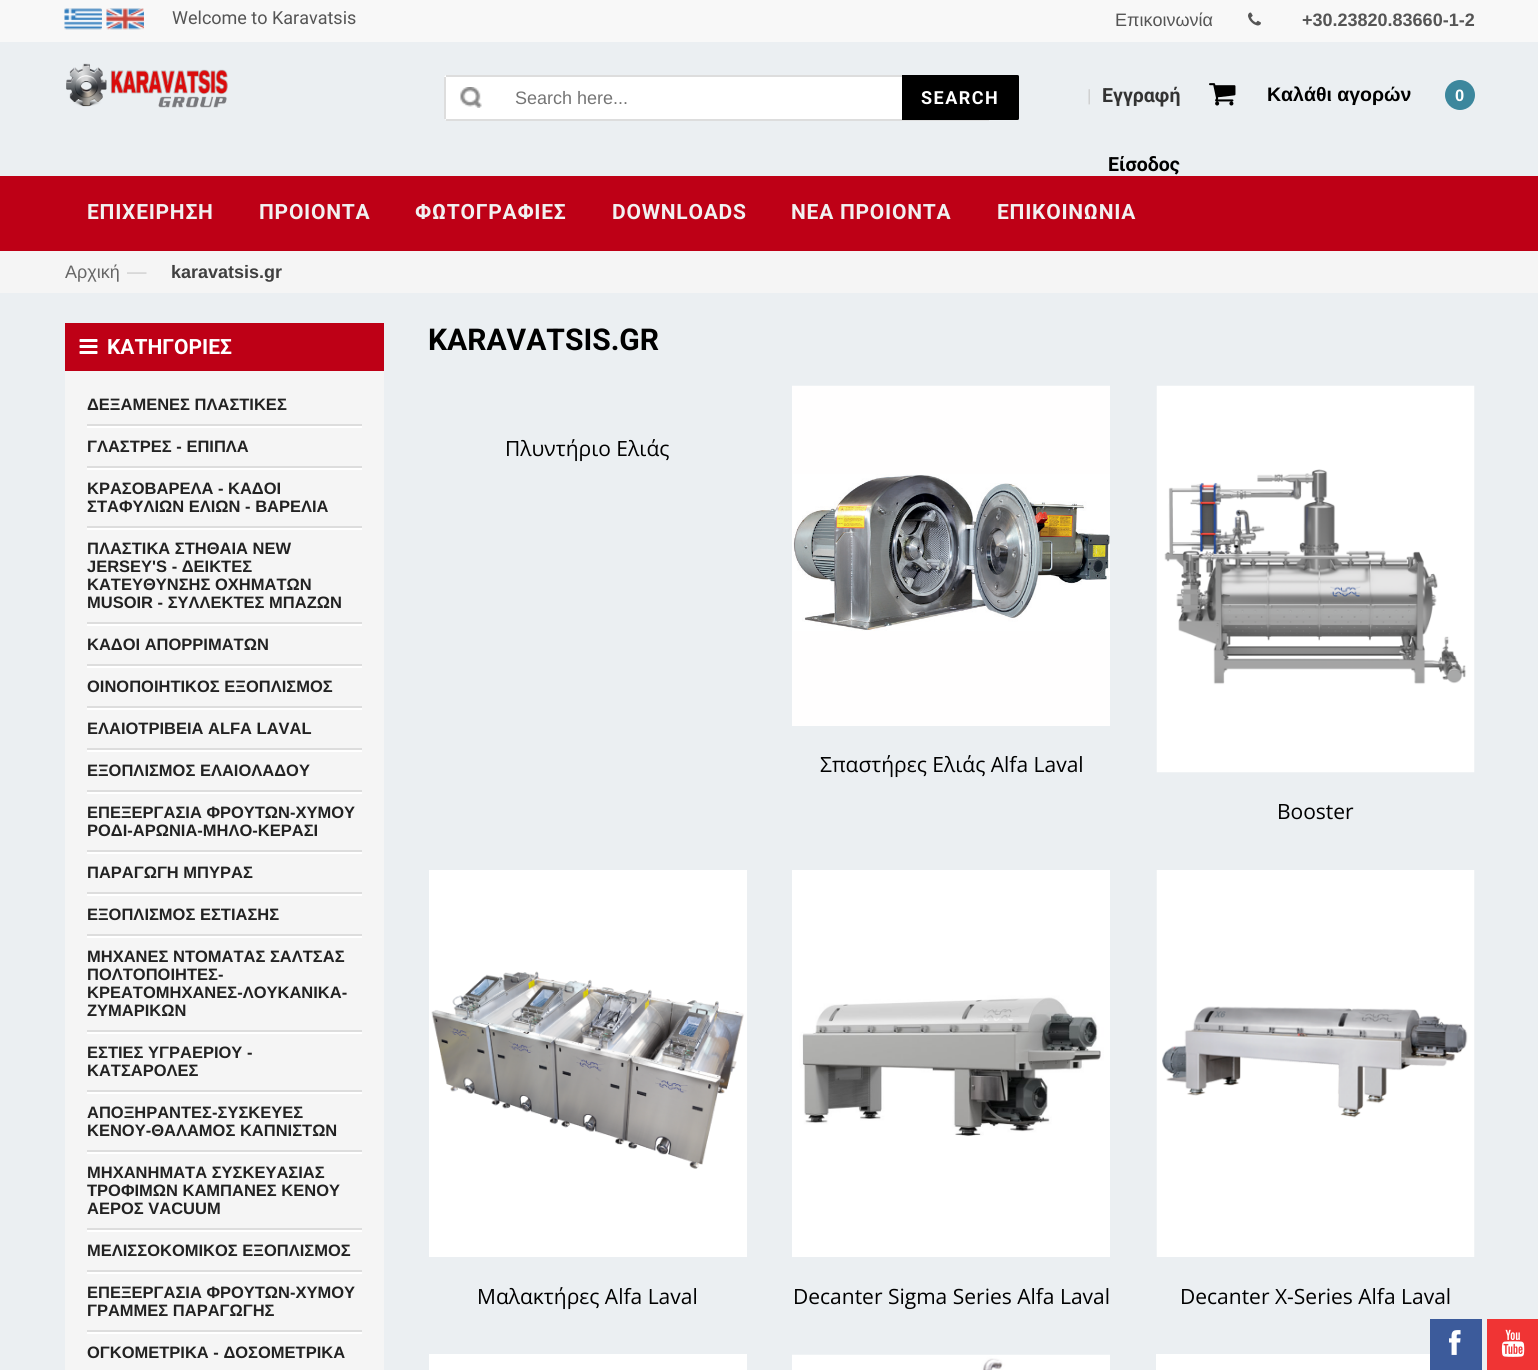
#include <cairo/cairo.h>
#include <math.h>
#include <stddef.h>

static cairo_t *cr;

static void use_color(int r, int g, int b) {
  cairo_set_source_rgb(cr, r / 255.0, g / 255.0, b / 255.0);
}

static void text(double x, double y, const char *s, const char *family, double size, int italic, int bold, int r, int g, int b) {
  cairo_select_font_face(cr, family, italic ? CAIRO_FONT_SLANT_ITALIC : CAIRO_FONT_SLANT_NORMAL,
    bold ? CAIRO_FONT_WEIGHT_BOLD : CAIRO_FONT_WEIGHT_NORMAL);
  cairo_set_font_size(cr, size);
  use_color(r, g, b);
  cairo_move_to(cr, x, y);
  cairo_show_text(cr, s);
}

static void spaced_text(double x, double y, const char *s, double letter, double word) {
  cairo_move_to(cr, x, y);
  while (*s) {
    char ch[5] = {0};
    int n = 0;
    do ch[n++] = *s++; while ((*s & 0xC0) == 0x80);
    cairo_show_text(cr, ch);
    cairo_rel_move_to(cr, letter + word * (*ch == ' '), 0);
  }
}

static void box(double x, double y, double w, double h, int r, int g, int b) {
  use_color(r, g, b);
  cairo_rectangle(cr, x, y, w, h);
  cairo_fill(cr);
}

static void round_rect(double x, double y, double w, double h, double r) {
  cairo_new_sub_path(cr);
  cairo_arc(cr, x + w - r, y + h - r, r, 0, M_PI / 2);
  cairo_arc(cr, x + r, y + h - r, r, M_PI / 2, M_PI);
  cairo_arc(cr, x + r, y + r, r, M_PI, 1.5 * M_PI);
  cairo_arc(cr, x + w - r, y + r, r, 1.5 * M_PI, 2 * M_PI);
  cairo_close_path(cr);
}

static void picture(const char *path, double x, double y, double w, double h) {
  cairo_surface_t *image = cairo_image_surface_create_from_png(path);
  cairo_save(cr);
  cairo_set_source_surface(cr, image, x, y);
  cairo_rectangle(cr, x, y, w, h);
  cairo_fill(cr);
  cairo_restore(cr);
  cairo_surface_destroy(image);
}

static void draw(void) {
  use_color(235, 239, 242);
  cairo_paint(cr);
  box(0, 0, 1538, 42, 248, 248, 248);
  picture("img_01.png", 64, 8, 38, 22);
  picture("img_02.png", 106, 8, 38, 22);
  picture("img_03.png", 1248, 12, 13, 14);
  picture("img_04.png", 66, 63, 162, 45);
  use_color(255, 255, 255);
  round_rect(444, 75, 546, 45, 3);
  cairo_fill(cr);
  picture("img_05.png", 460, 87, 22, 21);
  box(446, 75, 456, 2, 221, 221, 221);
  box(446, 119, 543, 2, 221, 221, 221);
  box(444, 77, 2, 42, 221, 221, 221);
  use_color(0, 0, 0);
  cairo_new_path(cr);
  cairo_move_to(cr, 903, 76);
  cairo_line_to(cr, 1017.5, 76);
  cairo_curve_to(cr, 1018, 76, 1018, 76, 1018, 76.5);
  cairo_line_to(cr, 1018, 118.5);
  cairo_curve_to(cr, 1018, 119, 1018, 119, 1017.5, 119);
  cairo_line_to(cr, 903, 119);
  cairo_close_path(cr);
  cairo_fill_preserve(cr);
  cairo_stroke(cr);
  picture("img_06.png", 1209, 83, 27, 23);
  use_color(60, 135, 157);
  cairo_arc(cr, 1460, 95, 15, 0, 2 * M_PI);
  cairo_fill(cr);
  box(0, 176, 1538, 75, 190, 0, 22);
  box(0, 251, 1538, 42, 245, 245, 245);
  box(65, 371, 319, 999, 245, 245, 245);
  box(65, 323, 319, 48, 190, 0, 22);
  picture("img_07.png", 79, 339, 19, 15);
  use_color(255, 255, 255);
  cairo_new_path(cr);
  cairo_move_to(cr, 87, 424);
  cairo_line_to(cr, 87, 428);
  cairo_line_to(cr, 362, 428);
  cairo_line_to(cr, 362, 386);
  cairo_line_to(cr, 362, 424);
  cairo_close_path(cr);
  cairo_fill(cr);
  use_color(221, 221, 221);
  cairo_new_path(cr);
  cairo_move_to(cr, 87, 424);
  cairo_line_to(cr, 87, 426);
  cairo_line_to(cr, 362, 426);
  cairo_line_to(cr, 362, 384);
  cairo_line_to(cr, 362, 424);
  cairo_close_path(cr);
  cairo_fill(cr);
  use_color(255, 255, 255);
  cairo_new_path(cr);
  cairo_move_to(cr, 87, 466);
  cairo_line_to(cr, 87, 470);
  cairo_line_to(cr, 362, 470);
  cairo_line_to(cr, 362, 428);
  cairo_line_to(cr, 362, 466);
  cairo_close_path(cr);
  cairo_fill(cr);
  use_color(221, 221, 221);
  cairo_new_path(cr);
  cairo_move_to(cr, 87, 466);
  cairo_line_to(cr, 87, 468);
  cairo_line_to(cr, 362, 468);
  cairo_line_to(cr, 362, 426);
  cairo_line_to(cr, 362, 466);
  cairo_close_path(cr);
  cairo_fill(cr);
  use_color(255, 255, 255);
  cairo_new_path(cr);
  cairo_move_to(cr, 87, 526);
  cairo_line_to(cr, 87, 530);
  cairo_line_to(cr, 362, 530);
  cairo_line_to(cr, 362, 470);
  cairo_line_to(cr, 362, 526);
  cairo_close_path(cr);
  cairo_fill(cr);
  use_color(221, 221, 221);
  cairo_new_path(cr);
  cairo_move_to(cr, 87, 526);
  cairo_line_to(cr, 87, 528);
  cairo_line_to(cr, 362, 528);
  cairo_line_to(cr, 362, 468);
  cairo_line_to(cr, 362, 526);
  cairo_close_path(cr);
  cairo_fill(cr);
  use_color(255, 255, 255);
  cairo_new_path(cr);
  cairo_move_to(cr, 87, 622);
  cairo_line_to(cr, 87, 626);
  cairo_line_to(cr, 362, 626);
  cairo_line_to(cr, 362, 530);
  cairo_line_to(cr, 362, 622);
  cairo_close_path(cr);
  cairo_fill(cr);
  use_color(221, 221, 221);
  cairo_new_path(cr);
  cairo_move_to(cr, 87, 622);
  cairo_line_to(cr, 87, 624);
  cairo_line_to(cr, 362, 624);
  cairo_line_to(cr, 362, 528);
  cairo_line_to(cr, 362, 622);
  cairo_close_path(cr);
  cairo_fill(cr);
  use_color(255, 255, 255);
  cairo_new_path(cr);
  cairo_move_to(cr, 87, 664);
  cairo_line_to(cr, 87, 668);
  cairo_line_to(cr, 362, 668);
  cairo_line_to(cr, 362, 626);
  cairo_line_to(cr, 362, 664);
  cairo_close_path(cr);
  cairo_fill(cr);
  use_color(221, 221, 221);
  cairo_new_path(cr);
  cairo_move_to(cr, 87, 664);
  cairo_line_to(cr, 87, 666);
  cairo_line_to(cr, 362, 666);
  cairo_line_to(cr, 362, 624);
  cairo_line_to(cr, 362, 664);
  cairo_close_path(cr);
  cairo_fill(cr);
  use_color(255, 255, 255);
  cairo_new_path(cr);
  cairo_move_to(cr, 87, 706);
  cairo_line_to(cr, 87, 710);
  cairo_line_to(cr, 362, 710);
  cairo_line_to(cr, 362, 668);
  cairo_line_to(cr, 362, 706);
  cairo_close_path(cr);
  cairo_fill(cr);
  use_color(221, 221, 221);
  cairo_new_path(cr);
  cairo_move_to(cr, 87, 706);
  cairo_line_to(cr, 87, 708);
  cairo_line_to(cr, 362, 708);
  cairo_line_to(cr, 362, 666);
  cairo_line_to(cr, 362, 706);
  cairo_close_path(cr);
  cairo_fill(cr);
  use_color(255, 255, 255);
  cairo_new_path(cr);
  cairo_move_to(cr, 87, 748);
  cairo_line_to(cr, 87, 752);
  cairo_line_to(cr, 362, 752);
  cairo_line_to(cr, 362, 710);
  cairo_line_to(cr, 362, 748);
  cairo_close_path(cr);
  cairo_fill(cr);
  use_color(221, 221, 221);
  cairo_new_path(cr);
  cairo_move_to(cr, 87, 748);
  cairo_line_to(cr, 87, 750);
  cairo_line_to(cr, 362, 750);
  cairo_line_to(cr, 362, 708);
  cairo_line_to(cr, 362, 748);
  cairo_close_path(cr);
  cairo_fill(cr);
  use_color(255, 255, 255);
  cairo_new_path(cr);
  cairo_move_to(cr, 87, 790);
  cairo_line_to(cr, 87, 794);
  cairo_line_to(cr, 362, 794);
  cairo_line_to(cr, 362, 752);
  cairo_line_to(cr, 362, 790);
  cairo_close_path(cr);
  cairo_fill(cr);
  use_color(221, 221, 221);
  cairo_new_path(cr);
  cairo_move_to(cr, 87, 790);
  cairo_line_to(cr, 87, 792);
  cairo_line_to(cr, 362, 792);
  cairo_line_to(cr, 362, 750);
  cairo_line_to(cr, 362, 790);
  cairo_close_path(cr);
  cairo_fill(cr);
  use_color(255, 255, 255);
  cairo_new_path(cr);
  cairo_move_to(cr, 87, 850);
  cairo_line_to(cr, 87, 854);
  cairo_line_to(cr, 362, 854);
  cairo_line_to(cr, 362, 794);
  cairo_line_to(cr, 362, 850);
  cairo_close_path(cr);
  cairo_fill(cr);
  use_color(221, 221, 221);
  cairo_new_path(cr);
  cairo_move_to(cr, 87, 850);
  cairo_line_to(cr, 87, 852);
  cairo_line_to(cr, 362, 852);
  cairo_line_to(cr, 362, 792);
  cairo_line_to(cr, 362, 850);
  cairo_close_path(cr);
  cairo_fill(cr);
  use_color(255, 255, 255);
  cairo_new_path(cr);
  cairo_move_to(cr, 87, 892);
  cairo_line_to(cr, 87, 896);
  cairo_line_to(cr, 362, 896);
  cairo_line_to(cr, 362, 854);
  cairo_line_to(cr, 362, 892);
  cairo_close_path(cr);
  cairo_fill(cr);
  use_color(221, 221, 221);
  cairo_new_path(cr);
  cairo_move_to(cr, 87, 892);
  cairo_line_to(cr, 87, 894);
  cairo_line_to(cr, 362, 894);
  cairo_line_to(cr, 362, 852);
  cairo_line_to(cr, 362, 892);
  cairo_close_path(cr);
  cairo_fill(cr);
  use_color(255, 255, 255);
  cairo_new_path(cr);
  cairo_move_to(cr, 87, 934);
  cairo_line_to(cr, 87, 938);
  cairo_line_to(cr, 362, 938);
  cairo_line_to(cr, 362, 896);
  cairo_line_to(cr, 362, 934);
  cairo_close_path(cr);
  cairo_fill(cr);
  use_color(221, 221, 221);
  cairo_new_path(cr);
  cairo_move_to(cr, 87, 934);
  cairo_line_to(cr, 87, 936);
  cairo_line_to(cr, 362, 936);
  cairo_line_to(cr, 362, 894);
  cairo_line_to(cr, 362, 934);
  cairo_close_path(cr);
  cairo_fill(cr);
  use_color(255, 255, 255);
  cairo_new_path(cr);
  cairo_move_to(cr, 87, 1030);
  cairo_line_to(cr, 87, 1034);
  cairo_line_to(cr, 362, 1034);
  cairo_line_to(cr, 362, 938);
  cairo_line_to(cr, 362, 1030);
  cairo_close_path(cr);
  cairo_fill(cr);
  use_color(221, 221, 221);
  cairo_new_path(cr);
  cairo_move_to(cr, 87, 1030);
  cairo_line_to(cr, 87, 1032);
  cairo_line_to(cr, 362, 1032);
  cairo_line_to(cr, 362, 936);
  cairo_line_to(cr, 362, 1030);
  cairo_close_path(cr);
  cairo_fill(cr);
  use_color(255, 255, 255);
  cairo_new_path(cr);
  cairo_move_to(cr, 87, 1090);
  cairo_line_to(cr, 87, 1094);
  cairo_line_to(cr, 362, 1094);
  cairo_line_to(cr, 362, 1034);
  cairo_line_to(cr, 362, 1090);
  cairo_close_path(cr);
  cairo_fill(cr);
  use_color(221, 221, 221);
  cairo_new_path(cr);
  cairo_move_to(cr, 87, 1090);
  cairo_line_to(cr, 87, 1092);
  cairo_line_to(cr, 362, 1092);
  cairo_line_to(cr, 362, 1032);
  cairo_line_to(cr, 362, 1090);
  cairo_close_path(cr);
  cairo_fill(cr);
  use_color(255, 255, 255);
  cairo_new_path(cr);
  cairo_move_to(cr, 87, 1150);
  cairo_line_to(cr, 87, 1154);
  cairo_line_to(cr, 362, 1154);
  cairo_line_to(cr, 362, 1094);
  cairo_line_to(cr, 362, 1150);
  cairo_close_path(cr);
  cairo_fill(cr);
  use_color(221, 221, 221);
  cairo_new_path(cr);
  cairo_move_to(cr, 87, 1150);
  cairo_line_to(cr, 87, 1152);
  cairo_line_to(cr, 362, 1152);
  cairo_line_to(cr, 362, 1092);
  cairo_line_to(cr, 362, 1150);
  cairo_close_path(cr);
  cairo_fill(cr);
  use_color(255, 255, 255);
  cairo_new_path(cr);
  cairo_move_to(cr, 87, 1228);
  cairo_line_to(cr, 87, 1232);
  cairo_line_to(cr, 362, 1232);
  cairo_line_to(cr, 362, 1154);
  cairo_line_to(cr, 362, 1228);
  cairo_close_path(cr);
  cairo_fill(cr);
  use_color(221, 221, 221);
  cairo_new_path(cr);
  cairo_move_to(cr, 87, 1228);
  cairo_line_to(cr, 87, 1230);
  cairo_line_to(cr, 362, 1230);
  cairo_line_to(cr, 362, 1152);
  cairo_line_to(cr, 362, 1228);
  cairo_close_path(cr);
  cairo_fill(cr);
  use_color(255, 255, 255);
  cairo_new_path(cr);
  cairo_move_to(cr, 87, 1270);
  cairo_line_to(cr, 87, 1274);
  cairo_line_to(cr, 362, 1274);
  cairo_line_to(cr, 362, 1232);
  cairo_line_to(cr, 362, 1270);
  cairo_close_path(cr);
  cairo_fill(cr);
  use_color(221, 221, 221);
  cairo_new_path(cr);
  cairo_move_to(cr, 87, 1270);
  cairo_line_to(cr, 87, 1272);
  cairo_line_to(cr, 362, 1272);
  cairo_line_to(cr, 362, 1230);
  cairo_line_to(cr, 362, 1270);
  cairo_close_path(cr);
  cairo_fill(cr);
  use_color(255, 255, 255);
  cairo_new_path(cr);
  cairo_move_to(cr, 87, 1330);
  cairo_line_to(cr, 87, 1334);
  cairo_line_to(cr, 362, 1334);
  cairo_line_to(cr, 362, 1274);
  cairo_line_to(cr, 362, 1330);
  cairo_close_path(cr);
  cairo_fill(cr);
  use_color(221, 221, 221);
  cairo_new_path(cr);
  cairo_move_to(cr, 87, 1330);
  cairo_line_to(cr, 87, 1332);
  cairo_line_to(cr, 362, 1332);
  cairo_line_to(cr, 362, 1272);
  cairo_line_to(cr, 362, 1330);
  cairo_close_path(cr);
  cairo_fill(cr);
  picture("img_08.png", 792, 385, 318, 341);
  picture("img_09.png", 1156, 385, 319, 388);
  picture("img_10.png", 429, 870, 318, 387);
  picture("img_11.png", 792, 870, 318, 387);
  picture("img_12.png", 1156, 870, 319, 387);
  box(429, 1354, 318, 16, 255, 255, 255);
  picture("img_13.png", 792, 1354, 318, 16);
  box(1156, 1354, 274, 16, 255, 255, 255);
  box(1430, 1319, 52, 51, 60, 91, 155);
  picture("img_14.png", 1449, 1330, 12, 25);
  box(1487, 1319, 51, 51, 240, 52, 52);
  picture("img_15.png", 1501, 1329, 24, 28);
  text(172, 24, "Welcome to Karavatsis", "Roboto", 18, 0, 0, 85, 85, 85);
  text(1115, 26, "Επικοινωνία", "Liberation Sans", 18, 0, 0, 85, 85, 85);
  text(1302, 26, "+30.23820.83660-1-2", "Liberation Sans", 18, 0, 1, 85, 85, 85);
  text(515, 104, "Search here...", "Liberation Sans", 18, 0, 0, 117, 117, 117);
  cairo_select_font_face(cr, "Roboto", CAIRO_FONT_SLANT_NORMAL, CAIRO_FONT_WEIGHT_BOLD);
  use_color(255, 255, 255);
  spaced_text(921, 104, "SEARCH", 1.5, 0);
  text(1087, 102, "|", "Roboto", 18, 0, 0, 204, 204, 204);
  text(1102, 102, "Εγγραφή", "Roboto", 19.5, 0, 1, 51, 51, 51);
  text(1267, 101, "Καλάθι αγορών", "Liberation Sans", 19.5, 0, 1, 0, 0, 0);
  text(1455, 101, "0", "Liberation Sans", 16.5, 0, 1, 255, 255, 255);
  text(1108, 171, "Είσοδος", "Roboto", 19.5, 0, 1, 0, 0, 0);
  cairo_set_font_size(cr, 21);
  use_color(241, 241, 241);
  spaced_text(87, 219, "ΕΠΙΧΕΙΡΗΣΗ", 0.75, 0);
  spaced_text(259, 219, "ΠΡΟΙΟΝΤΑ", 0.75, 0);
  spaced_text(415, 219, "ΦΩΤΟΓΡΑΦΙΕΣ", 0.75, 0);
  spaced_text(612, 219, "DOWNLOADS", 0.75, 0);
  spaced_text(791, 219, "ΝΕΑ ΠΡΟΙΟΝΤΑ", 0.75, 0);
  spaced_text(997, 219, "ΕΠΙΚΟΙΝΩΝΙΑ", 0.75, 0);
  text(65, 278, "Αρχική", "Liberation Sans", 18, 0, 0, 102, 102, 102);
  text(127, 278, "—", "Liberation Sans", 19.5, 0, 0, 204, 204, 204);
  text(171, 278, "karavatsis.gr", "Liberation Sans", 18, 0, 1, 64, 64, 64);
  text(107, 354, "ΚΑΤΗΓΟΡΙΕΣ", "Roboto", 21, 0, 1, 255, 255, 255);
  text(87, 410, "ΔΕΞΑΜΕΝΕΣ ΠΛΑΣΤΙΚΕΣ", "Liberation Sans", 16.5, 0, 1, 34, 34, 34);
  text(87, 452, "ΓΛΑΣΤΡΕΣ - ΕΠΙΠΛΑ", "Liberation Sans", 16.5, 0, 1, 34, 34, 34);
  text(87, 494, "ΚΡΑΣΟΒΑΡΕΛΑ - ΚΑΔΟΙ", "Liberation Sans", 16.5, 0, 1, 34, 34, 34);
  text(87, 512, "ΣΤΑΦΥΛΙΩΝ ΕΛΙΩΝ - ΒΑΡΕΛΙΑ", "Liberation Sans", 16.5, 0, 1, 34, 34, 34);
  text(87, 554, "ΠΛΑΣΤΙΚΑ ΣΤΗΘΑΙΑ NEW", "Liberation Sans", 16.5, 0, 1, 34, 34, 34);
  text(87, 572, "JERSEY'S - ΔΕΙΚΤΕΣ", "Liberation Sans", 16.5, 0, 1, 34, 34, 34);
  text(87, 590, "ΚΑΤΕΥΘYΝΣΗΣ ΟΧΗΜΑΤΩΝ", "Liberation Sans", 16.5, 0, 1, 34, 34, 34);
  text(87, 608, "MUSOIR - ΣΥΛΛΕΚΤΕΣ ΜΠΑΖΩΝ", "Liberation Sans", 16.5, 0, 1, 34, 34, 34);
  text(87, 650, "ΚΑΔΟΙ ΑΠΟΡΡΙΜΑΤΩΝ", "Liberation Sans", 16.5, 0, 1, 34, 34, 34);
  text(87, 692, "ΟΙΝΟΠΟΙΗΤΙΚΟΣ ΕΞΟΠΛΙΣΜΟΣ", "Liberation Sans", 16.5, 0, 1, 34, 34, 34);
  text(87, 734, "ΕΛΑΙΟΤΡΙΒΕΙΑ ALFA LAVAL", "Liberation Sans", 16.5, 0, 1, 34, 34, 34);
  text(87, 776, "ΕΞΟΠΛΙΣΜΟΣ ΕΛΑΙΟΛΑΔΟΥ", "Liberation Sans", 16.5, 0, 1, 34, 34, 34);
  text(87, 818, "ΕΠΕΞΕΡΓΑΣΙΑ ΦΡΟΥΤΩΝ-ΧΥΜΟΥ", "Liberation Sans", 16.5, 0, 1, 34, 34, 34);
  text(87, 836, "ΡΟΔΙ-ΑΡΩΝΙΑ-ΜΗΛΟ-ΚΕΡΑΣΙ", "Liberation Sans", 16.5, 0, 1, 34, 34, 34);
  text(87, 878, "ΠΑΡΑΓΩΓΗ ΜΠΥΡΑΣ", "Liberation Sans", 16.5, 0, 1, 34, 34, 34);
  text(87, 920, "ΕΞΟΠΛΙΣΜΟΣ ΕΣΤΙΑΣΗΣ", "Liberation Sans", 16.5, 0, 1, 34, 34, 34);
  text(87, 962, "ΜΗΧΑΝΕΣ ΝΤΟΜΑΤΑΣ ΣΑΛΤΣΑΣ", "Liberation Sans", 16.5, 0, 1, 34, 34, 34);
  text(87, 980, "ΠΟΛΤΟΠΟΙΗΤΕΣ-", "Liberation Sans", 16.5, 0, 1, 34, 34, 34);
  text(87, 998, "ΚΡΕΑΤΟΜΗΧΑΝΕΣ-ΛΟΥΚΑΝΙΚΑ-", "Liberation Sans", 16.5, 0, 1, 34, 34, 34);
  text(87, 1016, "ΖΥΜΑΡΙΚΩΝ", "Liberation Sans", 16.5, 0, 1, 34, 34, 34);
  text(87, 1058, "ΕΣΤΙΕΣ ΥΓΡΑΕΡΙΟΥ -", "Liberation Sans", 16.5, 0, 1, 34, 34, 34);
  text(87, 1076, "ΚΑΤΣΑΡΟΛΕΣ", "Liberation Sans", 16.5, 0, 1, 34, 34, 34);
  text(87, 1118, "ΑΠΟΞΗΡΑΝΤΕΣ-ΣΥΣΚΕΥΕΣ", "Liberation Sans", 16.5, 0, 1, 34, 34, 34);
  text(87, 1136, "ΚΕΝΟΥ-ΘΑΛΑΜΟΣ ΚΑΠΝΙΣΤΩΝ", "Liberation Sans", 16.5, 0, 1, 34, 34, 34);
  text(87, 1178, "ΜΗΧΑΝΗΜΑΤΑ ΣΥΣΚΕΥΑΣΙΑΣ", "Liberation Sans", 16.5, 0, 1, 34, 34, 34);
  text(87, 1196, "ΤΡΟΦΙΜΩΝ ΚΑΜΠΑΝΕΣ ΚΕΝΟΥ", "Liberation Sans", 16.5, 0, 1, 34, 34, 34);
  text(87, 1214, "ΑΕΡΟΣ VACUUM", "Liberation Sans", 16.5, 0, 1, 34, 34, 34);
  text(87, 1256, "ΜΕΛΙΣΣΟΚΟΜΙΚΟΣ ΕΞΟΠΛΙΣΜΟΣ", "Liberation Sans", 16.5, 0, 1, 34, 34, 34);
  text(87, 1298, "ΕΠΕΞΕΡΓΑΣΙΑ ΦΡΟΥΤΩΝ-ΧΥΜΟΥ", "Liberation Sans", 16.5, 0, 1, 34, 34, 34);
  text(87, 1316, "ΓΡΑΜΜΕΣ ΠΑΡΑΓΩΓΗΣ", "Liberation Sans", 16.5, 0, 1, 34, 34, 34);
  text(87, 1358, "ΟΓΚΟΜΕΤΡΙΚΑ - ΔΟΣΟΜΕΤΡΙΚΑ", "Liberation Sans", 16.5, 0, 1, 34, 34, 34);
  text(428, 350, "KARAVATSIS.GR", "Roboto", 30, 0, 1, 0, 0, 0);
  text(505, 456, "Πλυντήριο Ελιάς", "Open Sans", 21, 0, 0, 0, 0, 0);
  text(820, 772, "Σπαστήρες Ελιάς Alfa Laval", "Open Sans", 21, 0, 0, 0, 0, 0);
  text(1277, 819, "Booster", "Open Sans", 21, 0, 0, 0, 0, 0);
  text(477, 1304, "Μαλακτήρες Alfa Laval", "Open Sans", 21, 0, 0, 0, 0, 0);
  text(793, 1304, "Decanter Sigma Series Alfa Laval", "Open Sans", 21, 0, 0, 0, 0, 0);
  text(1180, 1304, "Decanter X-Series Alfa Laval", "Open Sans", 21, 0, 0, 0, 0, 0);
}

int main(void) {
  cairo_surface_t *surface = cairo_image_surface_create(CAIRO_FORMAT_RGB24, 1538, 1370);
  cr = cairo_create(surface);
  cairo_font_options_t *options = cairo_font_options_create();
  cairo_font_options_set_hint_metrics(options, CAIRO_HINT_METRICS_OFF);
  cairo_font_options_set_hint_style(options, CAIRO_HINT_STYLE_NONE);
  cairo_set_font_options(cr, options);
  cairo_set_miter_limit(cr, 4);
  draw();
  cairo_surface_write_to_png(surface, "out.png");
  cairo_font_options_destroy(options);
  cairo_destroy(cr);
  cairo_surface_destroy(surface);
  return 0;
}
